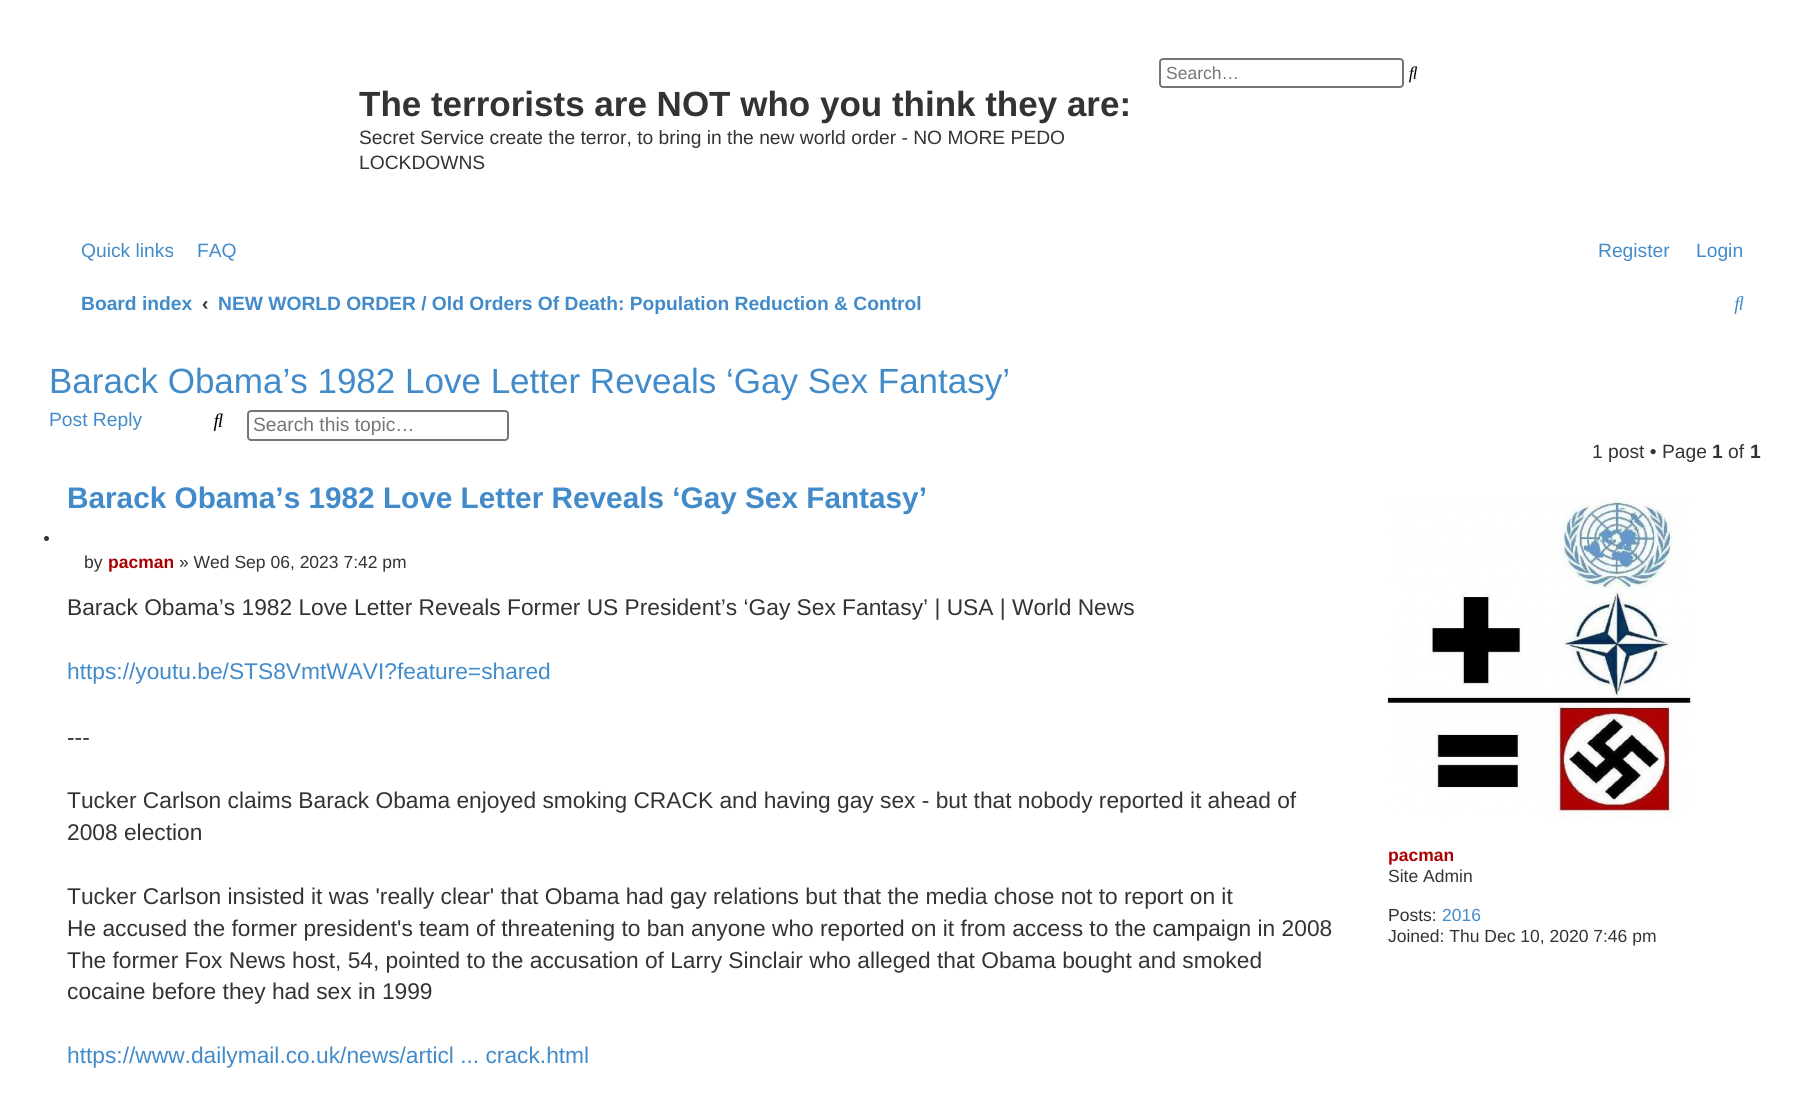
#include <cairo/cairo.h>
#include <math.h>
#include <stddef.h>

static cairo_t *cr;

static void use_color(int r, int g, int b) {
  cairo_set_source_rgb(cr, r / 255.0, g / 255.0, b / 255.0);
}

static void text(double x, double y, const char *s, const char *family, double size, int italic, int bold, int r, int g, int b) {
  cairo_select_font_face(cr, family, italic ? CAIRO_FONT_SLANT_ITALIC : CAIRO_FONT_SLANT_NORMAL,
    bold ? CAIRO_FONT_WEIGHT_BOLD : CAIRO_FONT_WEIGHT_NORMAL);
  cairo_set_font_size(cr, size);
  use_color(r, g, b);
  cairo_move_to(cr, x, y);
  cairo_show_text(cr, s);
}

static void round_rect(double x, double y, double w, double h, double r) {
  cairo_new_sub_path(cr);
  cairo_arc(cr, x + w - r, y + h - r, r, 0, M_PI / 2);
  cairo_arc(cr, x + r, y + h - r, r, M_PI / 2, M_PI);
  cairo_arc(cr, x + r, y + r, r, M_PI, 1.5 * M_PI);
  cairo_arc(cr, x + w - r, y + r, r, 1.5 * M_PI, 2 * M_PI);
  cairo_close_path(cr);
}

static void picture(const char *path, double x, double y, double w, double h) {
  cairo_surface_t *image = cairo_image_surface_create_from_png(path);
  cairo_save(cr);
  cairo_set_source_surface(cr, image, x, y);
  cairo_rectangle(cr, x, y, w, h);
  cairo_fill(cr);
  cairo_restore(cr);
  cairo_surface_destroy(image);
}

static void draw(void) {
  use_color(255, 255, 255);
  cairo_paint(cr);
  round_rect(1160, 59, 243, 28, 3);
  use_color(118, 118, 118);
  cairo_stroke(cr);
  picture("img_01.png", 1409, 66, 9, 17);
  picture("img_02.png", 1734, 296, 10, 18);
  picture("img_03.png", 213, 413, 10, 19);
  round_rect(248, 411, 260, 29, 3);
  cairo_stroke(cr);
  use_color(51, 51, 51);
  cairo_arc(cr, 46.5, 538.5, 2.5, 0, 2 * M_PI);
  cairo_fill(cr);
  picture("img_04.png", 1387, 496, 305, 323);
  text(1166, 79, "Search…", "Liberation Sans", 17.5, 0, 0, 117, 117, 117);
  text(359, 116, "The terrorists are NOT who you think they are:", "Liberation Sans", 35, 0, 1, 51, 51, 51);
  text(359, 144, "Secret Service create the terror, to bring in the new world order - NO MORE PEDO", "Liberation Sans", 19.25, 0, 0, 51, 51, 51);
  text(359, 169, "LOCKDOWNS", "Liberation Sans", 19.25, 0, 0, 51, 51, 51);
  text(81, 257, "Quick links", "Liberation Sans", 19.25, 0, 0, 66, 139, 202);
  text(197, 257, "FAQ", "Liberation Sans", 19.25, 0, 0, 66, 139, 202);
  text(1598, 257, "Register", "Liberation Sans", 19.25, 0, 0, 66, 139, 202);
  text(1696, 257, "Login", "Liberation Sans", 19.25, 0, 0, 66, 139, 202);
  text(81, 310, "Board index", "Liberation Sans", 19.25, 0, 1, 66, 139, 202);
  text(202, 310, "‹", "Liberation Sans", 19.25, 0, 1, 51, 51, 51);
  text(218, 310, "NEW WORLD ORDER / Old Orders Of Death: Population Reduction & Control", "Liberation Sans", 19.25, 0, 1, 66, 139, 202);
  text(49, 393, "Barack Obama’s 1982 Love Letter Reveals ‘Gay Sex Fantasy’", "Liberation Sans", 35, 0, 0, 66, 139, 202);
  text(49, 426, "Post Reply", "Liberation Sans", 19.25, 0, 0, 66, 139, 202);
  text(253, 431, "Search this topic…", "Liberation Sans", 19.25, 0, 0, 117, 117, 117);
  text(1592, 458, "1 post • Page", "Liberation Sans", 19.25, 0, 0, 51, 51, 51);
  text(1712, 458, "1", "Liberation Sans", 19.25, 0, 1, 51, 51, 51);
  text(1728, 458, "of", "Liberation Sans", 19.25, 0, 0, 51, 51, 51);
  text(1750, 458, "1", "Liberation Sans", 19.25, 0, 1, 51, 51, 51);
  text(67, 508, "Barack Obama’s 1982 Love Letter Reveals ‘Gay Sex Fantasy’", "Liberation Sans", 29.75, 0, 1, 66, 139, 202);
  text(84, 568, "by", "Liberation Sans", 17.5, 0, 0, 51, 51, 51);
  text(108, 568, "pacman", "Liberation Sans", 17.5, 0, 1, 170, 0, 0);
  text(179, 568, "» Wed Sep 06, 2023 7:42 pm", "Liberation Sans", 17.5, 0, 0, 51, 51, 51);
  text(67, 615, "Barack Obama’s 1982 Love Letter Reveals Former US President’s ‘Gay Sex Fantasy’ | USA | World News", "Liberation Sans", 22.75, 0, 0, 51, 51, 51);
  text(67, 679, "https://youtu.be/STS8VmtWAVI?feature=shared", "Liberation Sans", 22.75, 0, 0, 66, 139, 202);
  text(67, 745, "---", "Liberation Sans", 22.75, 0, 0, 51, 51, 51);
  text(67, 808, "Tucker Carlson claims Barack Obama enjoyed smoking CRACK and having gay sex - but that nobody reported it ahead of", "Liberation Sans", 22.75, 0, 0, 51, 51, 51);
  text(67, 840, "2008 election", "Liberation Sans", 22.75, 0, 0, 51, 51, 51);
  text(67, 904, "Tucker Carlson insisted it was 'really clear' that Obama had gay relations but that the media chose not to report on it", "Liberation Sans", 22.75, 0, 0, 51, 51, 51);
  text(67, 936, "He accused the former president's team of threatening to ban anyone who reported on it from access to the campaign in 2008", "Liberation Sans", 22.75, 0, 0, 51, 51, 51);
  text(67, 968, "The former Fox News host, 54, pointed to the accusation of Larry Sinclair who alleged that Obama bought and smoked", "Liberation Sans", 22.75, 0, 0, 51, 51, 51);
  text(67, 999, "cocaine before they had sex in 1999", "Liberation Sans", 22.75, 0, 0, 51, 51, 51);
  text(67, 1063, "https://www.dailymail.co.uk/news/articl ... crack.html", "Liberation Sans", 22.75, 0, 0, 66, 139, 202);
  text(1388, 861, "pacman", "Liberation Sans", 17.5, 0, 1, 170, 0, 0);
  text(1388, 882, "Site Admin", "Liberation Sans", 17.5, 0, 0, 51, 51, 51);
  text(1388, 921, "Posts:", "Liberation Sans", 17.5, 0, 0, 51, 51, 51);
  text(1442, 921, "2016", "Liberation Sans", 17.5, 0, 0, 66, 139, 202);
  text(1388, 942, "Joined: Thu Dec 10, 2020 7:46 pm", "Liberation Sans", 17.5, 0, 0, 51, 51, 51);
}

int main(void) {
  cairo_surface_t *surface = cairo_image_surface_create(CAIRO_FORMAT_RGB24, 1809, 1107);
  cr = cairo_create(surface);
  cairo_font_options_t *options = cairo_font_options_create();
  cairo_font_options_set_hint_metrics(options, CAIRO_HINT_METRICS_OFF);
  cairo_font_options_set_hint_style(options, CAIRO_HINT_STYLE_NONE);
  cairo_set_font_options(cr, options);
  cairo_set_miter_limit(cr, 4);
  draw();
  cairo_surface_write_to_png(surface, "out.png");
  cairo_font_options_destroy(options);
  cairo_destroy(cr);
  cairo_surface_destroy(surface);
  return 0;
}
